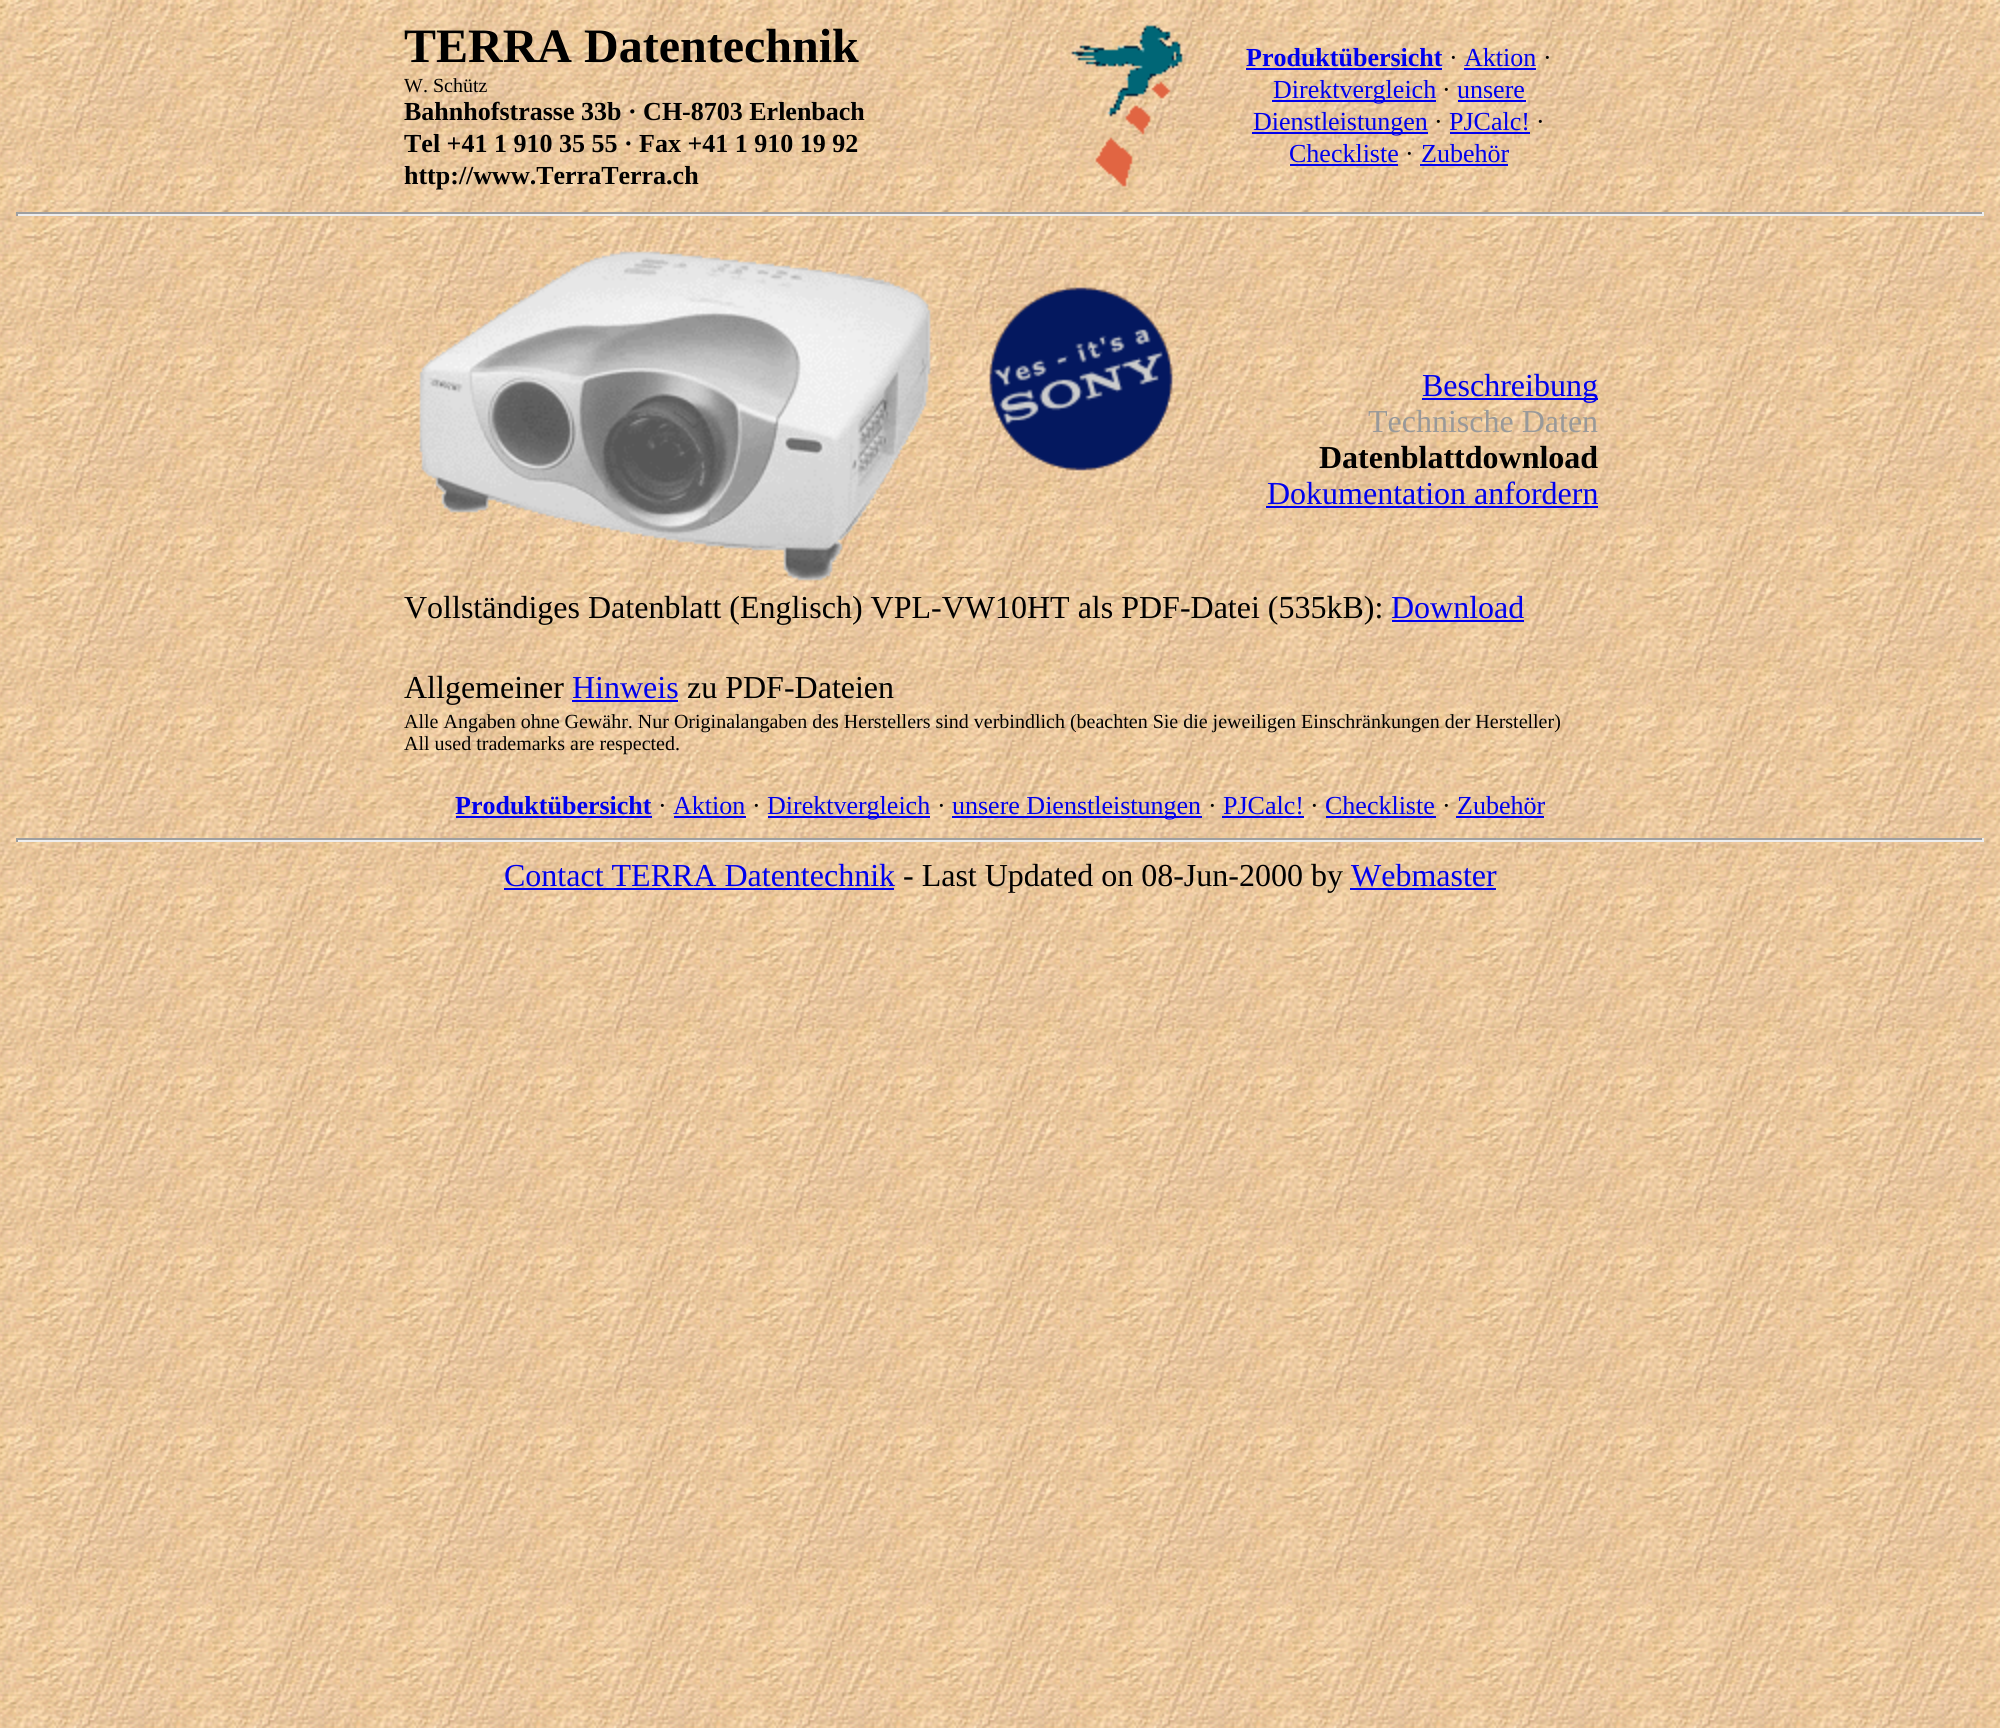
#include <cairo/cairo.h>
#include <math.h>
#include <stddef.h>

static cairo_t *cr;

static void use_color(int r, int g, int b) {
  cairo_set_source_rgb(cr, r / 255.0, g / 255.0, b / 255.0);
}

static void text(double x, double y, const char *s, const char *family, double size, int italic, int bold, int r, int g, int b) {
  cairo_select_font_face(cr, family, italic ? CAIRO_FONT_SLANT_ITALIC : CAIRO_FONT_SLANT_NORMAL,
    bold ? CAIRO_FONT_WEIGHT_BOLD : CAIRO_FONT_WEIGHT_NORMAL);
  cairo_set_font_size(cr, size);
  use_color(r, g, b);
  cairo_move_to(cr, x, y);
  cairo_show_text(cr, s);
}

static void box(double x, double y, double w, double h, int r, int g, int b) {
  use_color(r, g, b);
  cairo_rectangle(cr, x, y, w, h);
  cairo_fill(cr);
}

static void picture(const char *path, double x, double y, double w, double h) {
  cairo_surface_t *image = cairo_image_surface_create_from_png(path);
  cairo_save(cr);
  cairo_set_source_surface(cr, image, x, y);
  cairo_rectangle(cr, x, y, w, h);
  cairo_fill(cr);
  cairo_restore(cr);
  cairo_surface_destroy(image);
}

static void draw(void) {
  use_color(255, 255, 255);
  cairo_paint(cr);
  picture("img_01.png", 0, 0, 2000, 1728);
  picture("img_02.png", 1071, 25, 112, 162);
  box(1246, 68, 196, 2, 0, 0, 238);
  box(1464, 68, 72, 2, 0, 0, 238);
  box(1272, 100, 164, 2, 0, 0, 238);
  box(1458, 100, 68, 2, 0, 0, 238);
  box(1252, 132, 176, 2, 0, 0, 238);
  box(1450, 132, 80, 2, 0, 0, 238);
  box(1290, 164, 108, 2, 0, 0, 238);
  box(1420, 164, 88, 2, 0, 0, 238);
  box(16, 212, 1968, 2, 159, 159, 159);
  box(1982, 212, 2, 4, 238, 238, 238);
  box(16, 214, 1968, 2, 238, 238, 238);
  box(16, 212, 2, 4, 159, 159, 159);
  picture("img_03.png", 419, 251, 512, 330);
  picture("img_04.png", 989, 287, 184, 184);
  box(1422, 398, 176, 2, 0, 0, 238);
  box(1266, 506, 332, 2, 0, 0, 238);
  box(1392, 620, 132, 2, 0, 0, 238);
  box(572, 700, 106, 2, 0, 0, 238);
  box(456, 816, 196, 2, 0, 0, 238);
  box(674, 816, 72, 2, 0, 0, 238);
  box(768, 816, 162, 2, 0, 0, 238);
  box(952, 816, 250, 2, 0, 0, 238);
  box(1222, 816, 82, 2, 0, 0, 238);
  box(1326, 816, 110, 2, 0, 0, 238);
  box(1456, 816, 88, 2, 0, 0, 238);
  box(16, 838, 1968, 2, 159, 159, 159);
  box(1982, 838, 2, 4, 238, 238, 238);
  box(16, 840, 1968, 2, 238, 238, 238);
  box(16, 838, 2, 4, 159, 159, 159);
  box(504, 888, 390, 2, 0, 0, 238);
  box(1350, 888, 146, 2, 0, 0, 238);
  text(404, 62, "TERRA Datentechnik", "Liberation Serif", 48, 0, 1, 0, 0, 0);
  text(404, 92, "W. Schütz", "Liberation Serif", 20, 0, 0, 0, 0, 0);
  text(404, 120, "Bahnhofstrasse 33b · CH-8703 Erlenbach", "Liberation Serif", 26, 0, 1, 0, 0, 0);
  text(404, 152, "Tel +41 1 910 35 55 · Fax +41 1 910 19 92", "Liberation Serif", 26, 0, 1, 0, 0, 0);
  text(404, 184, "http://www.TerraTerra.ch", "Liberation Serif", 26, 0, 1, 0, 0, 0);
  text(1246, 66, "Produktübersicht", "Liberation Serif", 26, 0, 1, 0, 0, 238);
  text(1449, 66, "·", "Liberation Serif", 26, 0, 0, 0, 0, 0);
  text(1464, 66, "Aktion", "Liberation Serif", 26, 0, 0, 0, 0, 238);
  text(1543, 66, "·", "Liberation Serif", 26, 0, 0, 0, 0, 0);
  text(1273, 98, "Direktvergleich", "Liberation Serif", 26, 0, 0, 0, 0, 238);
  text(1442, 98, "·", "Liberation Serif", 26, 0, 0, 0, 0, 0);
  text(1457, 98, "unsere", "Liberation Serif", 26, 0, 0, 0, 0, 238);
  text(1253, 130, "Dienstleistungen", "Liberation Serif", 26, 0, 0, 0, 0, 238);
  text(1434, 130, "·", "Liberation Serif", 26, 0, 0, 0, 0, 0);
  text(1449, 130, "PJCalc!", "Liberation Serif", 26, 0, 0, 0, 0, 238);
  text(1536, 130, "·", "Liberation Serif", 26, 0, 0, 0, 0, 0);
  text(1289, 162, "Checkliste", "Liberation Serif", 26, 0, 0, 0, 0, 238);
  text(1405, 162, "·", "Liberation Serif", 26, 0, 0, 0, 0, 0);
  text(1421, 162, "Zubehör", "Liberation Serif", 26, 0, 0, 0, 0, 238);
  text(1422, 396, "Beschreibung", "Liberation Serif", 32, 0, 0, 0, 0, 238);
  text(1368, 432, "Technische Daten", "Liberation Serif", 32, 0, 0, 153, 153, 153);
  text(1319, 468, "Datenblattdownload", "Liberation Serif", 32, 0, 1, 0, 0, 0);
  text(1267, 504, "Dokumentation anfordern", "Liberation Serif", 32, 0, 0, 0, 0, 238);
  text(404, 618, "Vollständiges Datenblatt (Englisch) VPL-VW10HT als PDF-Datei (535kB):", "Liberation Serif", 32, 0, 0, 0, 0, 0);
  text(1391, 618, "Download", "Liberation Serif", 32, 0, 0, 0, 0, 238);
  text(404, 698, "Allgemeiner", "Liberation Serif", 32, 0, 0, 0, 0, 0);
  text(572, 698, "Hinweis", "Liberation Serif", 32, 0, 0, 0, 0, 238);
  text(687, 698, "zu PDF-Dateien", "Liberation Serif", 32, 0, 0, 0, 0, 0);
  text(404, 728, "Alle Angaben ohne Gewähr. Nur Originalangaben des Herstellers sind verbindlich (beachten Sie die jeweiligen Einschränkungen der Hersteller)", "Liberation Serif", 20, 0, 0, 0, 0, 0);
  text(404, 750, "All used trademarks are respected.", "Liberation Serif", 20, 0, 0, 0, 0, 0);
  text(455, 814, "Produktübersicht", "Liberation Serif", 26, 0, 1, 0, 0, 238);
  text(658, 814, "·", "Liberation Serif", 26, 0, 0, 0, 0, 0);
  text(673, 814, "Aktion", "Liberation Serif", 26, 0, 0, 0, 0, 238);
  text(752, 814, "·", "Liberation Serif", 26, 0, 0, 0, 0, 0);
  text(767, 814, "Direktvergleich", "Liberation Serif", 26, 0, 0, 0, 0, 238);
  text(937, 814, "·", "Liberation Serif", 26, 0, 0, 0, 0, 0);
  text(952, 814, "unsere Dienstleistungen", "Liberation Serif", 26, 0, 0, 0, 0, 238);
  text(1208, 814, "·", "Liberation Serif", 26, 0, 0, 0, 0, 0);
  text(1223, 814, "PJCalc!", "Liberation Serif", 26, 0, 0, 0, 0, 238);
  text(1310, 814, "·", "Liberation Serif", 26, 0, 0, 0, 0, 0);
  text(1325, 814, "Checkliste", "Liberation Serif", 26, 0, 0, 0, 0, 238);
  text(1442, 814, "·", "Liberation Serif", 26, 0, 0, 0, 0, 0);
  text(1457, 814, "Zubehör", "Liberation Serif", 26, 0, 0, 0, 0, 238);
  text(504, 886, "Contact TERRA Datentechnik", "Liberation Serif", 32, 0, 0, 0, 0, 238);
  text(903, 886, "- Last Updated on 08-Jun-2000 by", "Liberation Serif", 32, 0, 0, 0, 0, 0);
  text(1351, 886, "Webmaster", "Liberation Serif", 32, 0, 0, 0, 0, 238);
}

int main(void) {
  cairo_surface_t *surface = cairo_image_surface_create(CAIRO_FORMAT_RGB24, 2000, 1728);
  cr = cairo_create(surface);
  cairo_font_options_t *options = cairo_font_options_create();
  cairo_font_options_set_hint_metrics(options, CAIRO_HINT_METRICS_OFF);
  cairo_font_options_set_hint_style(options, CAIRO_HINT_STYLE_NONE);
  cairo_set_font_options(cr, options);
  cairo_set_miter_limit(cr, 4);
  draw();
  cairo_surface_write_to_png(surface, "out.png");
  cairo_font_options_destroy(options);
  cairo_destroy(cr);
  cairo_surface_destroy(surface);
  return 0;
}
